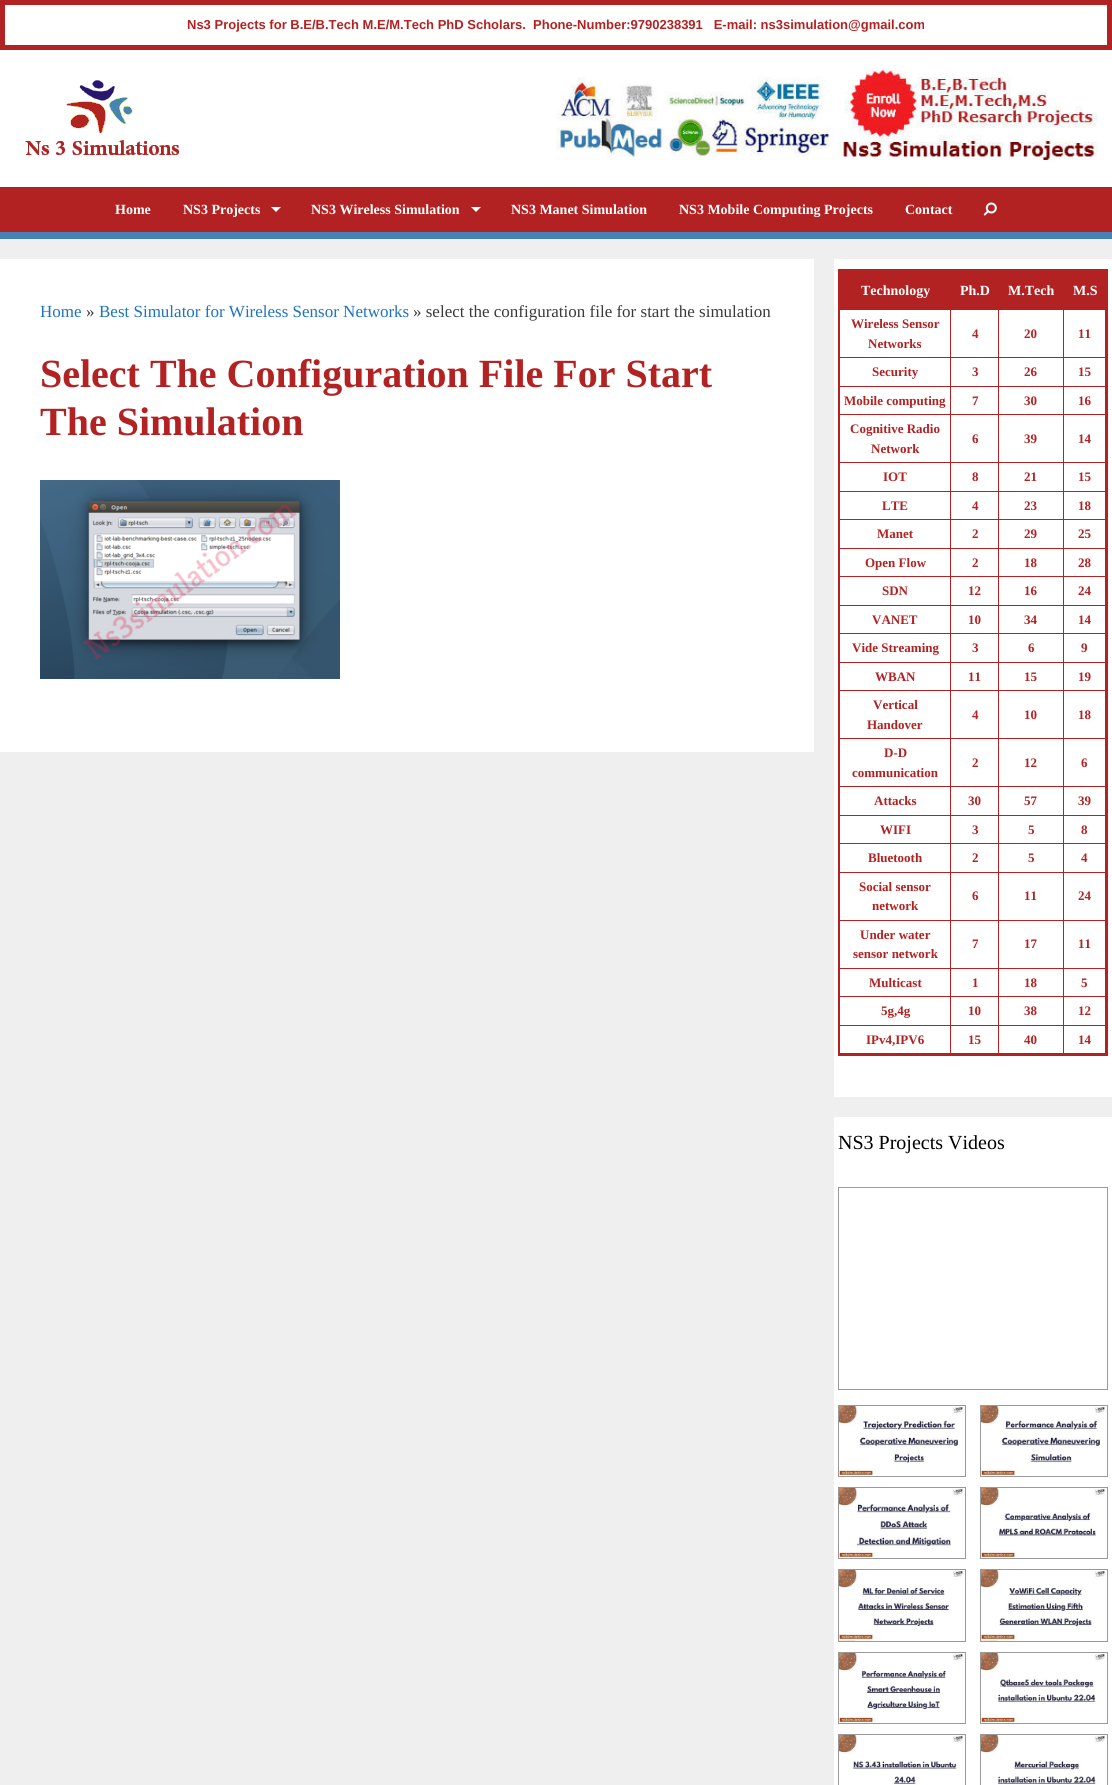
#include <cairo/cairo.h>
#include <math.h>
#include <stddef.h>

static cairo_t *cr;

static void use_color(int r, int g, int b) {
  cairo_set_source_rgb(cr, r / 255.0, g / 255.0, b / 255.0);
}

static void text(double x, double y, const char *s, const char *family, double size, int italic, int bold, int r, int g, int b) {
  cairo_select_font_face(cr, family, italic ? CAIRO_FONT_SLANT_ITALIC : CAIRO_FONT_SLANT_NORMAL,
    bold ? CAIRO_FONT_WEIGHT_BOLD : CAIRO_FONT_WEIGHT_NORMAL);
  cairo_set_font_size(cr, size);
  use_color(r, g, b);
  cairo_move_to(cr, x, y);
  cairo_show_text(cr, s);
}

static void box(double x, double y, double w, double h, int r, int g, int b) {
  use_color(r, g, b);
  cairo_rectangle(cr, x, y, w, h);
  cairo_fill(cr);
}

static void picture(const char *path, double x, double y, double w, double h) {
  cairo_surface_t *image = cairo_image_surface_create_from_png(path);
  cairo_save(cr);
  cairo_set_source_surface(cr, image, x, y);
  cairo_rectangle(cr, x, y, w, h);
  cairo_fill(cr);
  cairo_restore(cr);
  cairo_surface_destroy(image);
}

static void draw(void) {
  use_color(239, 239, 239);
  cairo_paint(cr);
  use_color(255, 255, 255);
  cairo_rectangle(cr, 2.5, 2.5, 1107, 45);
  cairo_fill_preserve(cr);
  use_color(178, 34, 34);
  cairo_set_line_width(cr, 5);
  cairo_stroke(cr);
  box(0, 50, 1112, 137, 255, 255, 255);
  picture("img_01.png", 25, 80, 154, 75);
  picture("img_02.png", 556, 70, 541, 90);
  box(0, 187, 1112, 45, 178, 34, 34);
  use_color(255, 255, 255);
  cairo_new_path(cr);
  cairo_move_to(cr, 271, 207);
  cairo_line_to(cr, 281, 207);
  cairo_line_to(cr, 276, 212);
  cairo_close_path(cr);
  cairo_fill(cr);
  cairo_new_path(cr);
  cairo_move_to(cr, 471, 207);
  cairo_line_to(cr, 481, 207);
  cairo_line_to(cr, 476, 212);
  cairo_close_path(cr);
  cairo_fill(cr);
  picture("img_03.png", 983, 202, 14, 14);
  box(0, 232, 1112, 7, 70, 130, 180);
  box(0, 259, 814, 493, 255, 255, 255);
  picture("img_04.png", 40, 480, 300, 199);
  box(834, 259, 278, 838, 255, 255, 255);
  cairo_rectangle(cr, 839, 270, 268, 785);
  use_color(178, 34, 34);
  cairo_set_line_width(cr, 2);
  cairo_stroke(cr);
  box(840, 271, 266, 39, 178, 34, 34);
  box(950, 310, 1, 744, 178, 34, 34);
  box(840, 357, 111, 1, 178, 34, 34);
  box(998, 310, 1, 744, 178, 34, 34);
  box(951, 357, 48, 1, 178, 34, 34);
  box(1063, 310, 1, 744, 178, 34, 34);
  box(999, 357, 65, 1, 178, 34, 34);
  box(1105, 310, 1, 744, 178, 34, 34);
  box(1064, 357, 42, 1, 178, 34, 34);
  box(840, 386, 266, 1, 178, 34, 34);
  box(840, 414, 266, 1, 178, 34, 34);
  box(840, 462, 266, 1, 178, 34, 34);
  box(840, 491, 266, 1, 178, 34, 34);
  box(840, 519, 266, 1, 178, 34, 34);
  box(840, 548, 266, 1, 178, 34, 34);
  box(840, 576, 266, 1, 178, 34, 34);
  box(840, 605, 266, 1, 178, 34, 34);
  box(840, 633, 266, 1, 178, 34, 34);
  box(840, 662, 266, 1, 178, 34, 34);
  box(840, 690, 266, 1, 178, 34, 34);
  box(840, 738, 266, 1, 178, 34, 34);
  box(840, 786, 266, 1, 178, 34, 34);
  box(840, 815, 266, 1, 178, 34, 34);
  box(840, 843, 266, 1, 178, 34, 34);
  box(840, 872, 266, 1, 178, 34, 34);
  box(840, 920, 266, 1, 178, 34, 34);
  box(840, 968, 266, 1, 178, 34, 34);
  box(840, 996, 266, 1, 178, 34, 34);
  box(840, 1025, 266, 1, 178, 34, 34);
  box(840, 1053, 266, 1, 178, 34, 34);
  box(834, 1117, 278, 668, 255, 255, 255);
  cairo_rectangle(cr, 838.5, 1187.5, 269, 202);
  use_color(153, 153, 153);
  cairo_set_line_width(cr, 1);
  cairo_stroke(cr);
  picture("img_05.png", 839, 1406, 126, 70);
  cairo_rectangle(cr, 838.5, 1405.5, 127, 71);
  cairo_stroke(cr);
  picture("img_06.png", 981, 1406, 126, 70);
  cairo_rectangle(cr, 980.5, 1405.5, 127, 71);
  cairo_stroke(cr);
  picture("img_07.png", 839, 1488, 126, 70);
  cairo_rectangle(cr, 838.5, 1487.5, 127, 71);
  cairo_stroke(cr);
  picture("img_08.png", 981, 1488, 126, 70);
  cairo_rectangle(cr, 980.5, 1487.5, 127, 71);
  cairo_stroke(cr);
  picture("img_09.png", 839, 1570, 126, 71);
  cairo_rectangle(cr, 838.5, 1569.5, 127, 72);
  cairo_stroke(cr);
  picture("img_10.png", 981, 1570, 126, 71);
  cairo_rectangle(cr, 980.5, 1569.5, 127, 72);
  cairo_stroke(cr);
  picture("img_11.png", 839, 1653, 126, 70);
  cairo_rectangle(cr, 838.5, 1652.5, 127, 71);
  cairo_stroke(cr);
  picture("img_12.png", 981, 1653, 126, 70);
  cairo_rectangle(cr, 980.5, 1652.5, 127, 71);
  cairo_stroke(cr);
  picture("img_13.png", 839, 1735, 126, 50);
  cairo_rectangle(cr, 838.5, 1734.5, 127, 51);
  cairo_stroke(cr);
  picture("img_14.png", 981, 1735, 126, 50);
  cairo_rectangle(cr, 980.5, 1734.5, 127, 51);
  cairo_stroke(cr);
  text(187, 29, "Ns3 Projects for B.E/B.Tech M.E/M.Tech PhD Scholars.  Phone-Number:9790238391   E-mail: ns3simulation@gmail.com", "Liberation Sans", 13, 0, 1, 178, 34, 34);
  text(115, 214, "Home", "Liberation Serif", 14, 0, 1, 255, 255, 255);
  text(183, 214, "NS3 Projects", "Liberation Serif", 14, 0, 1, 255, 255, 255);
  text(311, 214, "NS3 Wireless Simulation", "Liberation Serif", 14, 0, 1, 255, 255, 255);
  text(511, 214, "NS3 Manet Simulation", "Liberation Serif", 14, 0, 1, 255, 255, 255);
  text(679, 214, "NS3 Mobile Computing Projects", "Liberation Serif", 14, 0, 1, 255, 255, 255);
  text(905, 214, "Contact", "Liberation Serif", 14, 0, 1, 255, 255, 255);
  text(40, 317, "Home", "Liberation Serif", 17, 0, 0, 30, 115, 190);
  text(86, 317, "»", "Liberation Serif", 17, 0, 0, 58, 58, 58);
  text(99, 317, "Best Simulator for Wireless Sensor Networks", "Liberation Serif", 17, 0, 0, 30, 115, 190);
  text(413, 317, "» select the configuration file for start the simulation", "Liberation Serif", 17, 0, 0, 58, 58, 58);
  text(40, 387, "Select The Configuration File For Start", "Liberation Serif", 40, 0, 1, 178, 34, 34);
  text(40, 435, "The Simulation", "Liberation Serif", 40, 0, 1, 178, 34, 34);
  text(861, 295, "Technology", "Liberation Serif", 14, 0, 1, 255, 255, 255);
  text(960, 295, "Ph.D", "Liberation Serif", 14, 0, 1, 255, 255, 255);
  text(1008, 295, "M.Tech", "Liberation Serif", 14, 0, 1, 255, 255, 255);
  text(1073, 295, "M.S", "Liberation Serif", 14, 0, 1, 255, 255, 255);
  text(851, 328, "Wireless Sensor", "Liberation Serif", 13, 0, 1, 178, 34, 34);
  text(868, 348, "Networks", "Liberation Serif", 13, 0, 1, 178, 34, 34);
  text(972, 338, "4", "Liberation Serif", 13, 0, 1, 178, 34, 34);
  text(1024, 338, "20", "Liberation Serif", 13, 0, 1, 178, 34, 34);
  text(1078, 338, "11", "Liberation Serif", 13, 0, 1, 178, 34, 34);
  text(872, 376, "Security", "Liberation Serif", 13, 0, 1, 178, 34, 34);
  text(972, 376, "3", "Liberation Serif", 13, 0, 1, 178, 34, 34);
  text(1024, 376, "26", "Liberation Serif", 13, 0, 1, 178, 34, 34);
  text(1078, 376, "15", "Liberation Serif", 13, 0, 1, 178, 34, 34);
  text(844, 405, "Mobile computing", "Liberation Serif", 13, 0, 1, 178, 34, 34);
  text(972, 405, "7", "Liberation Serif", 13, 0, 1, 178, 34, 34);
  text(1024, 405, "30", "Liberation Serif", 13, 0, 1, 178, 34, 34);
  text(1078, 405, "16", "Liberation Serif", 13, 0, 1, 178, 34, 34);
  text(850, 433, "Cognitive Radio", "Liberation Serif", 13, 0, 1, 178, 34, 34);
  text(871, 453, "Network", "Liberation Serif", 13, 0, 1, 178, 34, 34);
  text(972, 443, "6", "Liberation Serif", 13, 0, 1, 178, 34, 34);
  text(1024, 443, "39", "Liberation Serif", 13, 0, 1, 178, 34, 34);
  text(1078, 443, "14", "Liberation Serif", 13, 0, 1, 178, 34, 34);
  text(883, 481, "IOT", "Liberation Serif", 13, 0, 1, 178, 34, 34);
  text(972, 481, "8", "Liberation Serif", 13, 0, 1, 178, 34, 34);
  text(1024, 481, "21", "Liberation Serif", 13, 0, 1, 178, 34, 34);
  text(1078, 481, "15", "Liberation Serif", 13, 0, 1, 178, 34, 34);
  text(882, 510, "LTE", "Liberation Serif", 13, 0, 1, 178, 34, 34);
  text(972, 510, "4", "Liberation Serif", 13, 0, 1, 178, 34, 34);
  text(1024, 510, "23", "Liberation Serif", 13, 0, 1, 178, 34, 34);
  text(1078, 510, "18", "Liberation Serif", 13, 0, 1, 178, 34, 34);
  text(877, 538, "Manet", "Liberation Serif", 13, 0, 1, 178, 34, 34);
  text(972, 538, "2", "Liberation Serif", 13, 0, 1, 178, 34, 34);
  text(1024, 538, "29", "Liberation Serif", 13, 0, 1, 178, 34, 34);
  text(1078, 538, "25", "Liberation Serif", 13, 0, 1, 178, 34, 34);
  text(865, 567, "Open Flow", "Liberation Serif", 13, 0, 1, 178, 34, 34);
  text(972, 567, "2", "Liberation Serif", 13, 0, 1, 178, 34, 34);
  text(1024, 567, "18", "Liberation Serif", 13, 0, 1, 178, 34, 34);
  text(1078, 567, "28", "Liberation Serif", 13, 0, 1, 178, 34, 34);
  text(882, 595, "SDN", "Liberation Serif", 13, 0, 1, 178, 34, 34);
  text(968, 595, "12", "Liberation Serif", 13, 0, 1, 178, 34, 34);
  text(1024, 595, "16", "Liberation Serif", 13, 0, 1, 178, 34, 34);
  text(1078, 595, "24", "Liberation Serif", 13, 0, 1, 178, 34, 34);
  text(872, 624, "VANET", "Liberation Serif", 13, 0, 1, 178, 34, 34);
  text(968, 624, "10", "Liberation Serif", 13, 0, 1, 178, 34, 34);
  text(1024, 624, "34", "Liberation Serif", 13, 0, 1, 178, 34, 34);
  text(1078, 624, "14", "Liberation Serif", 13, 0, 1, 178, 34, 34);
  text(852, 652, "Vide Streaming", "Liberation Serif", 13, 0, 1, 178, 34, 34);
  text(972, 652, "3", "Liberation Serif", 13, 0, 1, 178, 34, 34);
  text(1028, 652, "6", "Liberation Serif", 13, 0, 1, 178, 34, 34);
  text(1081, 652, "9", "Liberation Serif", 13, 0, 1, 178, 34, 34);
  text(875, 681, "WBAN", "Liberation Serif", 13, 0, 1, 178, 34, 34);
  text(968, 681, "11", "Liberation Serif", 13, 0, 1, 178, 34, 34);
  text(1024, 681, "15", "Liberation Serif", 13, 0, 1, 178, 34, 34);
  text(1078, 681, "19", "Liberation Serif", 13, 0, 1, 178, 34, 34);
  text(873, 709, "Vertical", "Liberation Serif", 13, 0, 1, 178, 34, 34);
  text(867, 729, "Handover", "Liberation Serif", 13, 0, 1, 178, 34, 34);
  text(972, 719, "4", "Liberation Serif", 13, 0, 1, 178, 34, 34);
  text(1024, 719, "10", "Liberation Serif", 13, 0, 1, 178, 34, 34);
  text(1078, 719, "18", "Liberation Serif", 13, 0, 1, 178, 34, 34);
  text(884, 757, "D-D", "Liberation Serif", 13, 0, 1, 178, 34, 34);
  text(852, 777, "communication", "Liberation Serif", 13, 0, 1, 178, 34, 34);
  text(972, 767, "2", "Liberation Serif", 13, 0, 1, 178, 34, 34);
  text(1024, 767, "12", "Liberation Serif", 13, 0, 1, 178, 34, 34);
  text(1081, 767, "6", "Liberation Serif", 13, 0, 1, 178, 34, 34);
  text(874, 805, "Attacks", "Liberation Serif", 13, 0, 1, 178, 34, 34);
  text(968, 805, "30", "Liberation Serif", 13, 0, 1, 178, 34, 34);
  text(1024, 805, "57", "Liberation Serif", 13, 0, 1, 178, 34, 34);
  text(1078, 805, "39", "Liberation Serif", 13, 0, 1, 178, 34, 34);
  text(880, 834, "WIFI", "Liberation Serif", 13, 0, 1, 178, 34, 34);
  text(972, 834, "3", "Liberation Serif", 13, 0, 1, 178, 34, 34);
  text(1028, 834, "5", "Liberation Serif", 13, 0, 1, 178, 34, 34);
  text(1081, 834, "8", "Liberation Serif", 13, 0, 1, 178, 34, 34);
  text(868, 862, "Bluetooth", "Liberation Serif", 13, 0, 1, 178, 34, 34);
  text(972, 862, "2", "Liberation Serif", 13, 0, 1, 178, 34, 34);
  text(1028, 862, "5", "Liberation Serif", 13, 0, 1, 178, 34, 34);
  text(1081, 862, "4", "Liberation Serif", 13, 0, 1, 178, 34, 34);
  text(859, 891, "Social sensor", "Liberation Serif", 13, 0, 1, 178, 34, 34);
  text(872, 910, "network", "Liberation Serif", 13, 0, 1, 178, 34, 34);
  text(972, 900, "6", "Liberation Serif", 13, 0, 1, 178, 34, 34);
  text(1024, 900, "11", "Liberation Serif", 13, 0, 1, 178, 34, 34);
  text(1078, 900, "24", "Liberation Serif", 13, 0, 1, 178, 34, 34);
  text(860, 939, "Under water", "Liberation Serif", 13, 0, 1, 178, 34, 34);
  text(853, 958, "sensor network", "Liberation Serif", 13, 0, 1, 178, 34, 34);
  text(972, 948, "7", "Liberation Serif", 13, 0, 1, 178, 34, 34);
  text(1024, 948, "17", "Liberation Serif", 13, 0, 1, 178, 34, 34);
  text(1078, 948, "11", "Liberation Serif", 13, 0, 1, 178, 34, 34);
  text(869, 987, "Multicast", "Liberation Serif", 13, 0, 1, 178, 34, 34);
  text(972, 987, "1", "Liberation Serif", 13, 0, 1, 178, 34, 34);
  text(1024, 987, "18", "Liberation Serif", 13, 0, 1, 178, 34, 34);
  text(1081, 987, "5", "Liberation Serif", 13, 0, 1, 178, 34, 34);
  text(881, 1015, "5g,4g", "Liberation Serif", 13, 0, 1, 178, 34, 34);
  text(968, 1015, "10", "Liberation Serif", 13, 0, 1, 178, 34, 34);
  text(1024, 1015, "38", "Liberation Serif", 13, 0, 1, 178, 34, 34);
  text(1078, 1015, "12", "Liberation Serif", 13, 0, 1, 178, 34, 34);
  text(866, 1044, "IPv4,IPV6", "Liberation Serif", 13, 0, 1, 178, 34, 34);
  text(968, 1044, "15", "Liberation Serif", 13, 0, 1, 178, 34, 34);
  text(1024, 1044, "40", "Liberation Serif", 13, 0, 1, 178, 34, 34);
  text(1078, 1044, "14", "Liberation Serif", 13, 0, 1, 178, 34, 34);
  text(838, 1149, "NS3 Projects Videos", "Liberation Serif", 20, 0, 0, 0, 0, 0);
}

int main(void) {
  cairo_surface_t *surface = cairo_image_surface_create(CAIRO_FORMAT_RGB24, 1112, 1785);
  cr = cairo_create(surface);
  cairo_font_options_t *options = cairo_font_options_create();
  cairo_font_options_set_hint_metrics(options, CAIRO_HINT_METRICS_OFF);
  cairo_font_options_set_hint_style(options, CAIRO_HINT_STYLE_NONE);
  cairo_set_font_options(cr, options);
  cairo_set_miter_limit(cr, 4);
  draw();
  cairo_surface_write_to_png(surface, "out.png");
  cairo_font_options_destroy(options);
  cairo_destroy(cr);
  cairo_surface_destroy(surface);
  return 0;
}
